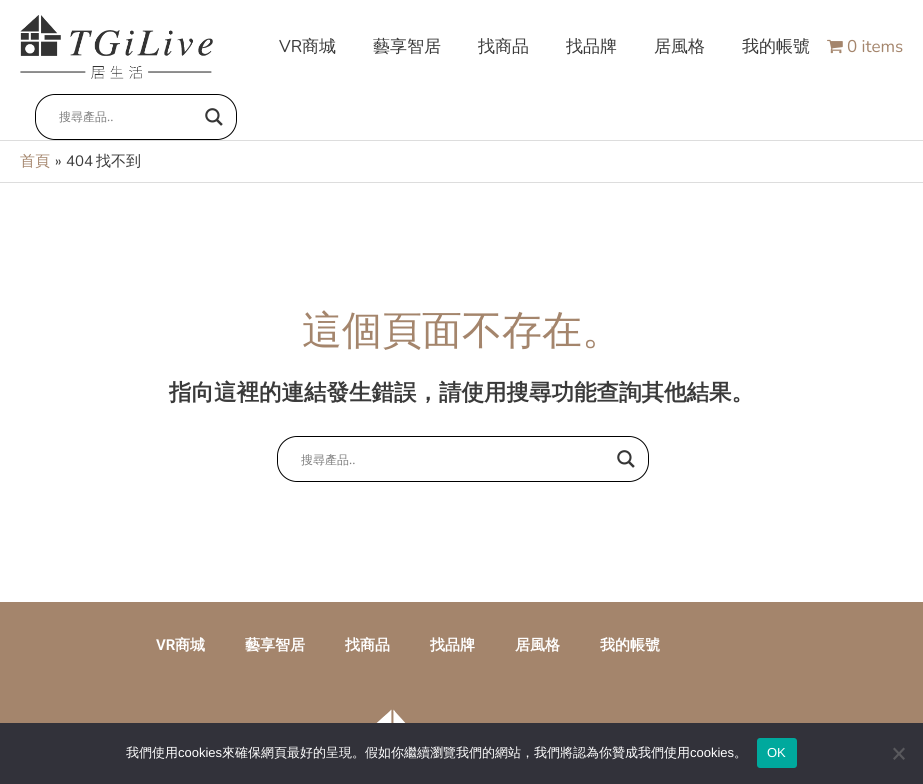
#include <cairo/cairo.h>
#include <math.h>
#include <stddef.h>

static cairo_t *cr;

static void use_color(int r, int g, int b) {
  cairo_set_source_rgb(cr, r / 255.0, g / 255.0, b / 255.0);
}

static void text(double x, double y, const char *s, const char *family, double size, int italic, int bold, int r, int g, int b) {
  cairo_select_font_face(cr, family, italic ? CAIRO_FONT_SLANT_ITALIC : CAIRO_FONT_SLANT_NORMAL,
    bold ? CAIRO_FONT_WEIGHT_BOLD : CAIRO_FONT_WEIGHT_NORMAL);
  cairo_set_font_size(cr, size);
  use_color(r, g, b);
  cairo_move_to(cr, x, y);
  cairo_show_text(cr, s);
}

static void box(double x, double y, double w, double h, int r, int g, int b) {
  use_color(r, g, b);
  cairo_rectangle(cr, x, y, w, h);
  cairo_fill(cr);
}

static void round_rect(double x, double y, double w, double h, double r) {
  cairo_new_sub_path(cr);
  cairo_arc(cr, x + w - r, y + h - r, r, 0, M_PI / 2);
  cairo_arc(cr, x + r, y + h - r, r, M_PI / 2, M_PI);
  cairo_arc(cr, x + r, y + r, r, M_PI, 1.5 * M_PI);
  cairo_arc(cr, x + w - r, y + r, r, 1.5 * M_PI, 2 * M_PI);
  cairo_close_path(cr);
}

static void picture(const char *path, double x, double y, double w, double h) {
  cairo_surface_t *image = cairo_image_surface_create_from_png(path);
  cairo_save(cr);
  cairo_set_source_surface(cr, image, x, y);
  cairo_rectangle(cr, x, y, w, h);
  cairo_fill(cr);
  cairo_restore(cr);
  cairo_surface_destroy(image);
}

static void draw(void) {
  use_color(255, 255, 255);
  cairo_paint(cr);
  box(0, 140, 923, 1, 221, 221, 221);
  picture("img_01.png", 20, 15, 193, 64);
  picture("img_02.png", 827, 39, 16, 15);
  round_rect(35.5, 94.5, 201, 45, 19.5);
  use_color(0, 0, 0);
  cairo_set_line_width(cr, 1);
  cairo_stroke(cr);
  use_color(255, 255, 255);
  round_rect(36, 95, 200, 44, 22);
  cairo_fill(cr);
  picture("img_03.png", 205, 108, 18, 18);
  box(0, 182, 923, 1, 221, 221, 221);
  round_rect(277.5, 436.5, 371, 45, 19.5);
  use_color(0, 0, 0);
  cairo_stroke(cr);
  use_color(255, 255, 255);
  round_rect(278, 437, 370, 44, 22);
  cairo_fill(cr);
  picture("img_03.png", 617, 450, 18, 18);
  box(0, 602, 923, 121, 164, 133, 108);
  picture("img_04.png", 376, 709, 30, 14);
  box(0, 723, 923, 61, 50, 50, 58);
  use_color(0, 169, 157);
  round_rect(757, 738, 40, 30, 3);
  cairo_fill(cr);
  use_color(89, 89, 93);
  cairo_new_path(cr);
  cairo_move_to(cr, 903.5, 747.5);
  cairo_line_to(cr, 905, 749);
  cairo_line_to(cr, 894.5, 760);
  cairo_line_to(cr, 893, 758.5);
  cairo_close_path(cr);
  cairo_fill(cr);
  cairo_new_path(cr);
  cairo_move_to(cr, 893, 749);
  cairo_line_to(cr, 894.5, 747.5);
  cairo_line_to(cr, 905, 758.5);
  cairo_line_to(cr, 903.5, 760);
  cairo_close_path(cr);
  cairo_fill(cr);
  text(279, 52, "VR", "Nunito ExtraLight", 17, 0, 0, 58, 58, 58);
  text(302, 52, "商城", "WenQuanYi Zen Hei Medium", 17, 0, 0, 58, 58, 58);
  text(373, 52, "藝享智居", "WenQuanYi Zen Hei Medium", 17, 0, 0, 58, 58, 58);
  text(478, 52, "找商品", "WenQuanYi Zen Hei Medium", 17, 0, 0, 58, 58, 58);
  text(566, 52, "找品牌", "WenQuanYi Zen Hei Medium", 17, 0, 0, 58, 58, 58);
  text(654, 52, "居風格", "WenQuanYi Zen Hei Medium", 17, 0, 0, 58, 58, 58);
  text(742, 52, "我的帳號", "WenQuanYi Zen Hei Medium", 17, 0, 0, 58, 58, 58);
  text(847, 52, "0 items", "Nunito ExtraLight", 17, 0, 0, 164, 133, 108);
  text(59, 121, "搜尋產品", "WenQuanYi Zen Hei Medium", 12, 0, 0, 125, 125, 125);
  text(107, 121, "..", "Open Sans", 12, 0, 0, 125, 125, 125);
  text(20, 166, "首頁", "WenQuanYi Zen Hei Medium", 15, 0, 0, 164, 133, 108);
  text(55, 166, "»", "Nunito ExtraLight", 15, 0, 0, 58, 58, 58);
  text(66, 166, "404", "Nunito ExtraLight", 15, 0, 0, 58, 58, 58);
  text(96, 166, "找不到", "WenQuanYi Zen Hei Medium", 15, 0, 0, 58, 58, 58);
  text(302, 344, "這個頁面不存在。", "WenQuanYi Zen Hei Medium", 40, 0, 0, 164, 133, 108);
  text(169, 400, "指向這裡的連結發生錯誤，請使用搜尋功能查詢其他結果。", "WenQuanYi Zen Hei", 22.5, 0, 1, 58, 58, 58);
  cairo_save(cr);
  cairo_rectangle(cr, 301, 451, 306, 18);
  cairo_clip(cr);
  text(301, 464, "搜尋產品", "WenQuanYi Zen Hei Medium", 12, 0, 0, 125, 125, 125);
  cairo_restore(cr);
  text(349, 464, "..", "Open Sans", 12, 0, 0, 125, 125, 125);
  text(156, 650, "VR", "Roboto SemiBold", 15, 0, 0, 255, 255, 255);
  text(175, 650, "商城", "WenQuanYi Zen Hei", 15, 0, 1, 255, 255, 255);
  text(245, 650, "藝享智居", "WenQuanYi Zen Hei", 15, 0, 1, 255, 255, 255);
  text(345, 650, "找商品", "WenQuanYi Zen Hei", 15, 0, 1, 255, 255, 255);
  text(430, 650, "找品牌", "WenQuanYi Zen Hei", 15, 0, 1, 255, 255, 255);
  text(515, 650, "居風格", "WenQuanYi Zen Hei", 15, 0, 1, 255, 255, 255);
  text(600, 650, "我的帳號", "WenQuanYi Zen Hei", 15, 0, 1, 255, 255, 255);
  text(126, 757, "我們使用", "WenQuanYi Zen Hei Medium", 13, 0, 0, 255, 255, 255);
  text(178, 757, "cookies", "Liberation Sans", 13, 0, 0, 255, 255, 255);
  text(222, 757, "來確保網頁最好的呈現。假如你繼續瀏覽我們的網站，我們將認為你贊成我們使用", "WenQuanYi Zen Hei Medium", 13, 0, 0, 255, 255, 255);
  text(690, 757, "cookies", "Liberation Sans", 13, 0, 0, 255, 255, 255);
  text(734, 757, "。", "WenQuanYi Zen Hei Medium", 13, 0, 0, 255, 255, 255);
  text(767, 757, "OK", "Liberation Sans", 13, 0, 0, 255, 255, 255);
}

int main(void) {
  cairo_surface_t *surface = cairo_image_surface_create(CAIRO_FORMAT_RGB24, 923, 784);
  cr = cairo_create(surface);
  cairo_font_options_t *options = cairo_font_options_create();
  cairo_font_options_set_hint_metrics(options, CAIRO_HINT_METRICS_OFF);
  cairo_font_options_set_hint_style(options, CAIRO_HINT_STYLE_NONE);
  cairo_set_font_options(cr, options);
  cairo_set_miter_limit(cr, 4);
  draw();
  cairo_surface_write_to_png(surface, "out.png");
  cairo_font_options_destroy(options);
  cairo_destroy(cr);
  cairo_surface_destroy(surface);
  return 0;
}
